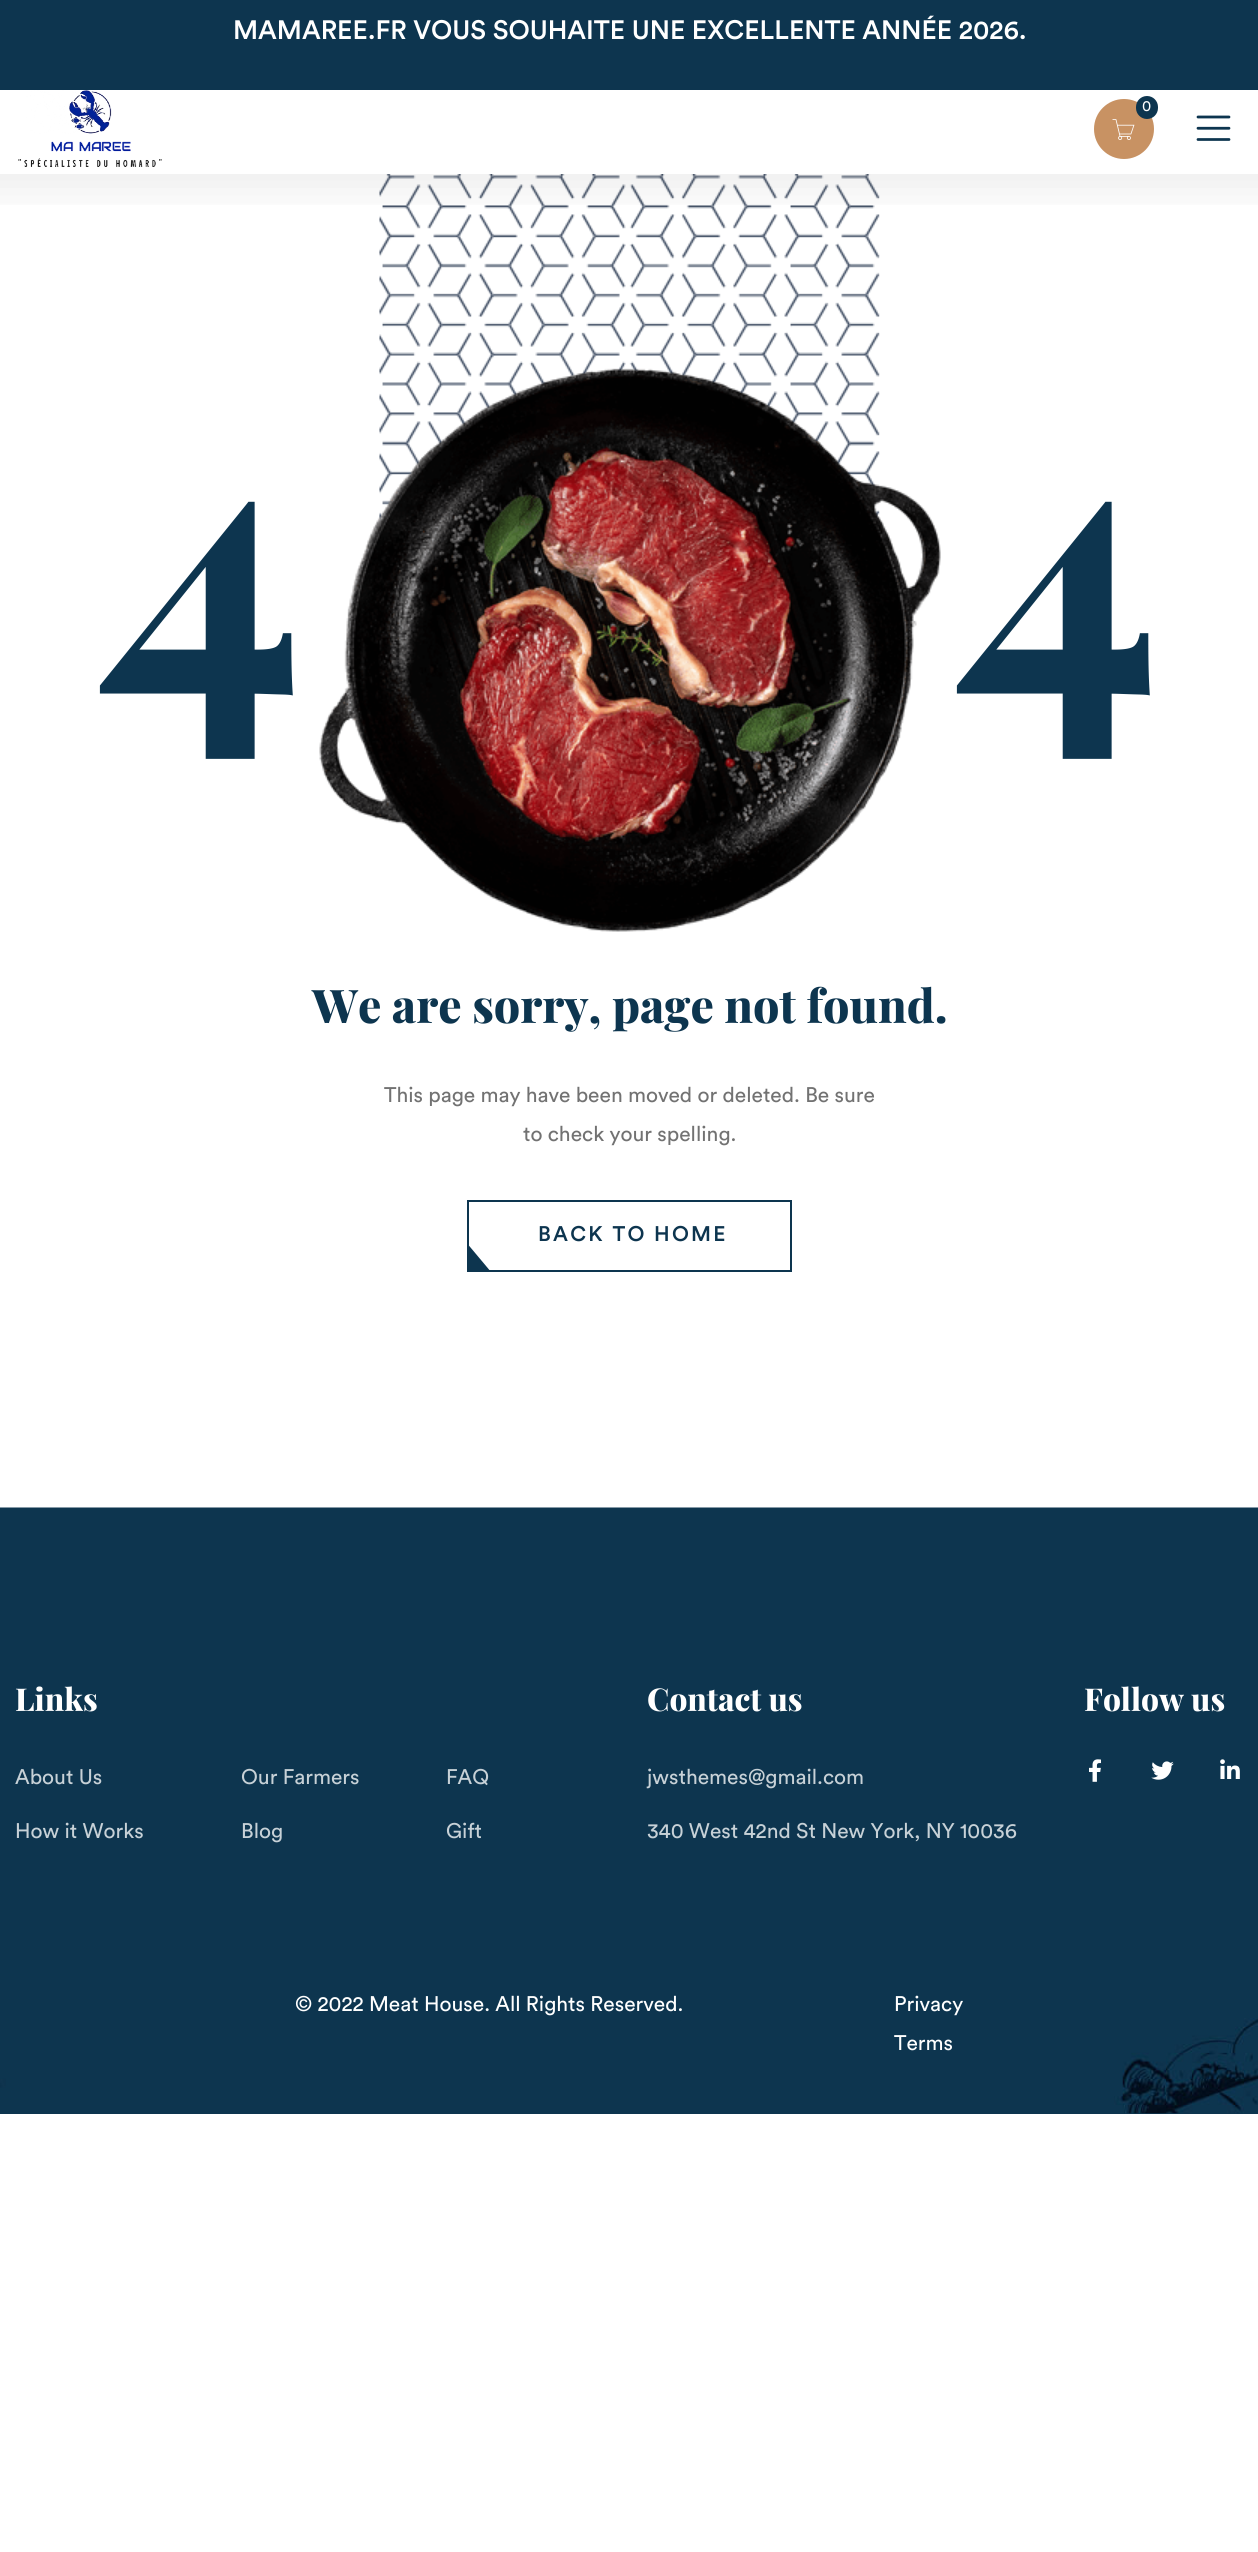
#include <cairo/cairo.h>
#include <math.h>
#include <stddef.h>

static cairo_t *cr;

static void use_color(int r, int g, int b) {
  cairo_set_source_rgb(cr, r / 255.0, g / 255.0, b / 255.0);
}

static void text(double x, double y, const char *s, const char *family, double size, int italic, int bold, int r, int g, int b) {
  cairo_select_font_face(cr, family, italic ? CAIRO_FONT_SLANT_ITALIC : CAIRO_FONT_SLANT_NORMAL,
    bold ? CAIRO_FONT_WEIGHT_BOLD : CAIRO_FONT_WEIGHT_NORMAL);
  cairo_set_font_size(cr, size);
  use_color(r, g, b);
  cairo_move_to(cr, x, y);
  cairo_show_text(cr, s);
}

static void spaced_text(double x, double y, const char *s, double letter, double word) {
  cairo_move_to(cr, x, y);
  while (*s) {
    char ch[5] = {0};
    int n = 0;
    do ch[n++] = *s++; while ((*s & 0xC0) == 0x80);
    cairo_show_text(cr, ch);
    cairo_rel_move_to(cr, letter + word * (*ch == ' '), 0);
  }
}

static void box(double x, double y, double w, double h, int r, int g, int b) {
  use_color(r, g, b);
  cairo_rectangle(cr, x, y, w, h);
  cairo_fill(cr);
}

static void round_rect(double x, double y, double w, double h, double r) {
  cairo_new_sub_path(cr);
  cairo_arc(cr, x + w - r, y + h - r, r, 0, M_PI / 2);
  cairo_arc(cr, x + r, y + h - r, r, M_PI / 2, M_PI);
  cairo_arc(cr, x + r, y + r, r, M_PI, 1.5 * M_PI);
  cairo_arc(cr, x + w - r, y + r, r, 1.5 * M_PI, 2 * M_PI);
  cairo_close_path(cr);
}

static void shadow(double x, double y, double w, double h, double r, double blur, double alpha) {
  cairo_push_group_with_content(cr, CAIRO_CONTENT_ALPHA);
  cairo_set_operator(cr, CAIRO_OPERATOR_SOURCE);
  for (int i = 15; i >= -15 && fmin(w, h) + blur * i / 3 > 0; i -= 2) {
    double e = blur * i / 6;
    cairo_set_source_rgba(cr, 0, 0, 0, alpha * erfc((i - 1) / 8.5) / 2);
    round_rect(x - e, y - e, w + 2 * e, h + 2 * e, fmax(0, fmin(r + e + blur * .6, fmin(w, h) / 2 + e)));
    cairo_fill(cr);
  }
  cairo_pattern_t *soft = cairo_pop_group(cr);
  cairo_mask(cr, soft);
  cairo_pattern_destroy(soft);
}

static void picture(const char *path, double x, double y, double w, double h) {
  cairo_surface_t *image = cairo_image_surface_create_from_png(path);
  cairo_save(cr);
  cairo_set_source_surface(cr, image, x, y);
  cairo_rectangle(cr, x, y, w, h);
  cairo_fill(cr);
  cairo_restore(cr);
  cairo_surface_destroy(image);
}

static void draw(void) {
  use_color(255, 255, 255);
  cairo_paint(cr);
  picture("img_04.png", 379, 174, 501, 346);
  cairo_save(cr);
  cairo_rectangle(cr, 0, 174, 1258, 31);
  cairo_clip(cr);
  use_color(0, 0, 0);
  shadow(-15, 78, 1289, 114, 0, 23, 0.07);
  cairo_restore(cr);
  box(0, 0, 1258, 90, 13, 53, 79);
  picture("img_01.png", 18, 90, 144, 77);
  use_color(200, 146, 99);
  cairo_arc(cr, 1124, 129, 30, 0, 2 * M_PI);
  cairo_fill(cr);
  use_color(13, 53, 79);
  round_rect(1136, 96, 22, 23, 11);
  cairo_fill(cr);
  picture("img_02.png", 1112, 119, 23, 21);
  picture("img_03.png", 1196, 115, 35, 26);
  picture("img_05.png", 319, 368, 622, 564);
  cairo_rectangle(cr, 468, 1201, 323, 70);
  cairo_stroke(cr);
  cairo_save(cr);
  cairo_rectangle(cr, 468, 1202, 323, 69);
  cairo_clip(cr);
  cairo_new_path(cr);
  cairo_move_to(cr, 398, 1161);
  cairo_line_to(cr, 590, 1390);
  cairo_line_to(cr, 361, 1583);
  cairo_line_to(cr, 168, 1353);
  cairo_close_path(cr);
  cairo_fill(cr);
  cairo_restore(cr);
  box(0, 2113, 1258, 1, 13, 53, 79);
  picture("img_06.png", 0, 1507, 1258, 607);
  picture("img_07.png", 1089, 1759, 12, 23);
  picture("img_08.png", 1151, 1761, 23, 19);
  picture("img_09.png", 1220, 1759, 20, 20);
  text(233, 39, "MAMAREE.FR VOUS SOUHAITE UNE EXCELLENTE ANNÉE 2026.", "Circular Medium", 26.4, 0, 0, 255, 255, 255);
  text(1142, 111, "0", "Circular", 15, 0, 0, 255, 255, 255);
  text(98, 705, "4", "Playfair Display ExtraBold", 382, 0, 0, 13, 53, 79);
  text(955, 705, "4", "Playfair Display ExtraBold", 382, 0, 0, 13, 53, 79);
  text(312, 1023, "We are sorry, page not found.", "Playfair Display ExtraBold", 46.4, 0, 0, 13, 53, 79);
  text(384, 1102, "This page may have been moved or deleted. Be sure", "Circular", 21, 0, 0, 114, 114, 114);
  text(523, 1141, "to check your spelling.", "Circular", 21, 0, 0, 114, 114, 114);
  cairo_select_font_face(cr, "Circular Medium", CAIRO_FONT_SLANT_NORMAL, CAIRO_FONT_WEIGHT_NORMAL);
  use_color(13, 53, 79);
  spaced_text(538, 1241, "BACK TO HOME", 2.25, 0);
  text(15, 1711, "Links", "Playfair Display ExtraBold", 31.5, 0, 0, 255, 255, 255);
  text(15, 1784, "About Us", "Circular", 21, 0, 0, 199, 209, 215);
  text(15, 1838, "How it Works", "Circular", 21, 0, 0, 199, 209, 215);
  text(241, 1784, "Our Farmers", "Circular", 21, 0, 0, 199, 209, 215);
  text(241, 1838, "Blog", "Circular", 21, 0, 0, 199, 209, 215);
  text(446, 1784, "FAQ", "Circular", 21, 0, 0, 199, 209, 215);
  text(446, 1838, "Gift", "Circular", 21, 0, 0, 199, 209, 215);
  text(647, 1711, "Contact us", "Playfair Display ExtraBold", 31.5, 0, 0, 255, 255, 255);
  text(647, 1784, "jwsthemes@gmail.com", "Circular", 21, 0, 0, 199, 209, 215);
  text(647, 1838, "340 West 42nd St New York, NY 10036", "Circular", 21, 0, 0, 199, 209, 215);
  text(1084, 1711, "Follow us", "Playfair Display ExtraBold", 31.5, 0, 0, 255, 255, 255);
  text(295, 2011, "© 2022 Meat House. All Rights Reserved.", "Circular", 21, 0, 0, 255, 255, 255);
  text(894, 2011, "Privacy", "Circular", 21, 0, 0, 255, 255, 255);
  text(894, 2050, "Terms", "Circular", 21, 0, 0, 255, 255, 255);
}

int main(void) {
  cairo_surface_t *surface = cairo_image_surface_create(CAIRO_FORMAT_RGB24, 1258, 2552);
  cr = cairo_create(surface);
  cairo_font_options_t *options = cairo_font_options_create();
  cairo_font_options_set_hint_metrics(options, CAIRO_HINT_METRICS_OFF);
  cairo_font_options_set_hint_style(options, CAIRO_HINT_STYLE_NONE);
  cairo_set_font_options(cr, options);
  cairo_set_miter_limit(cr, 4);
  draw();
  cairo_surface_write_to_png(surface, "out.png");
  cairo_font_options_destroy(options);
  cairo_destroy(cr);
  cairo_surface_destroy(surface);
  return 0;
}
